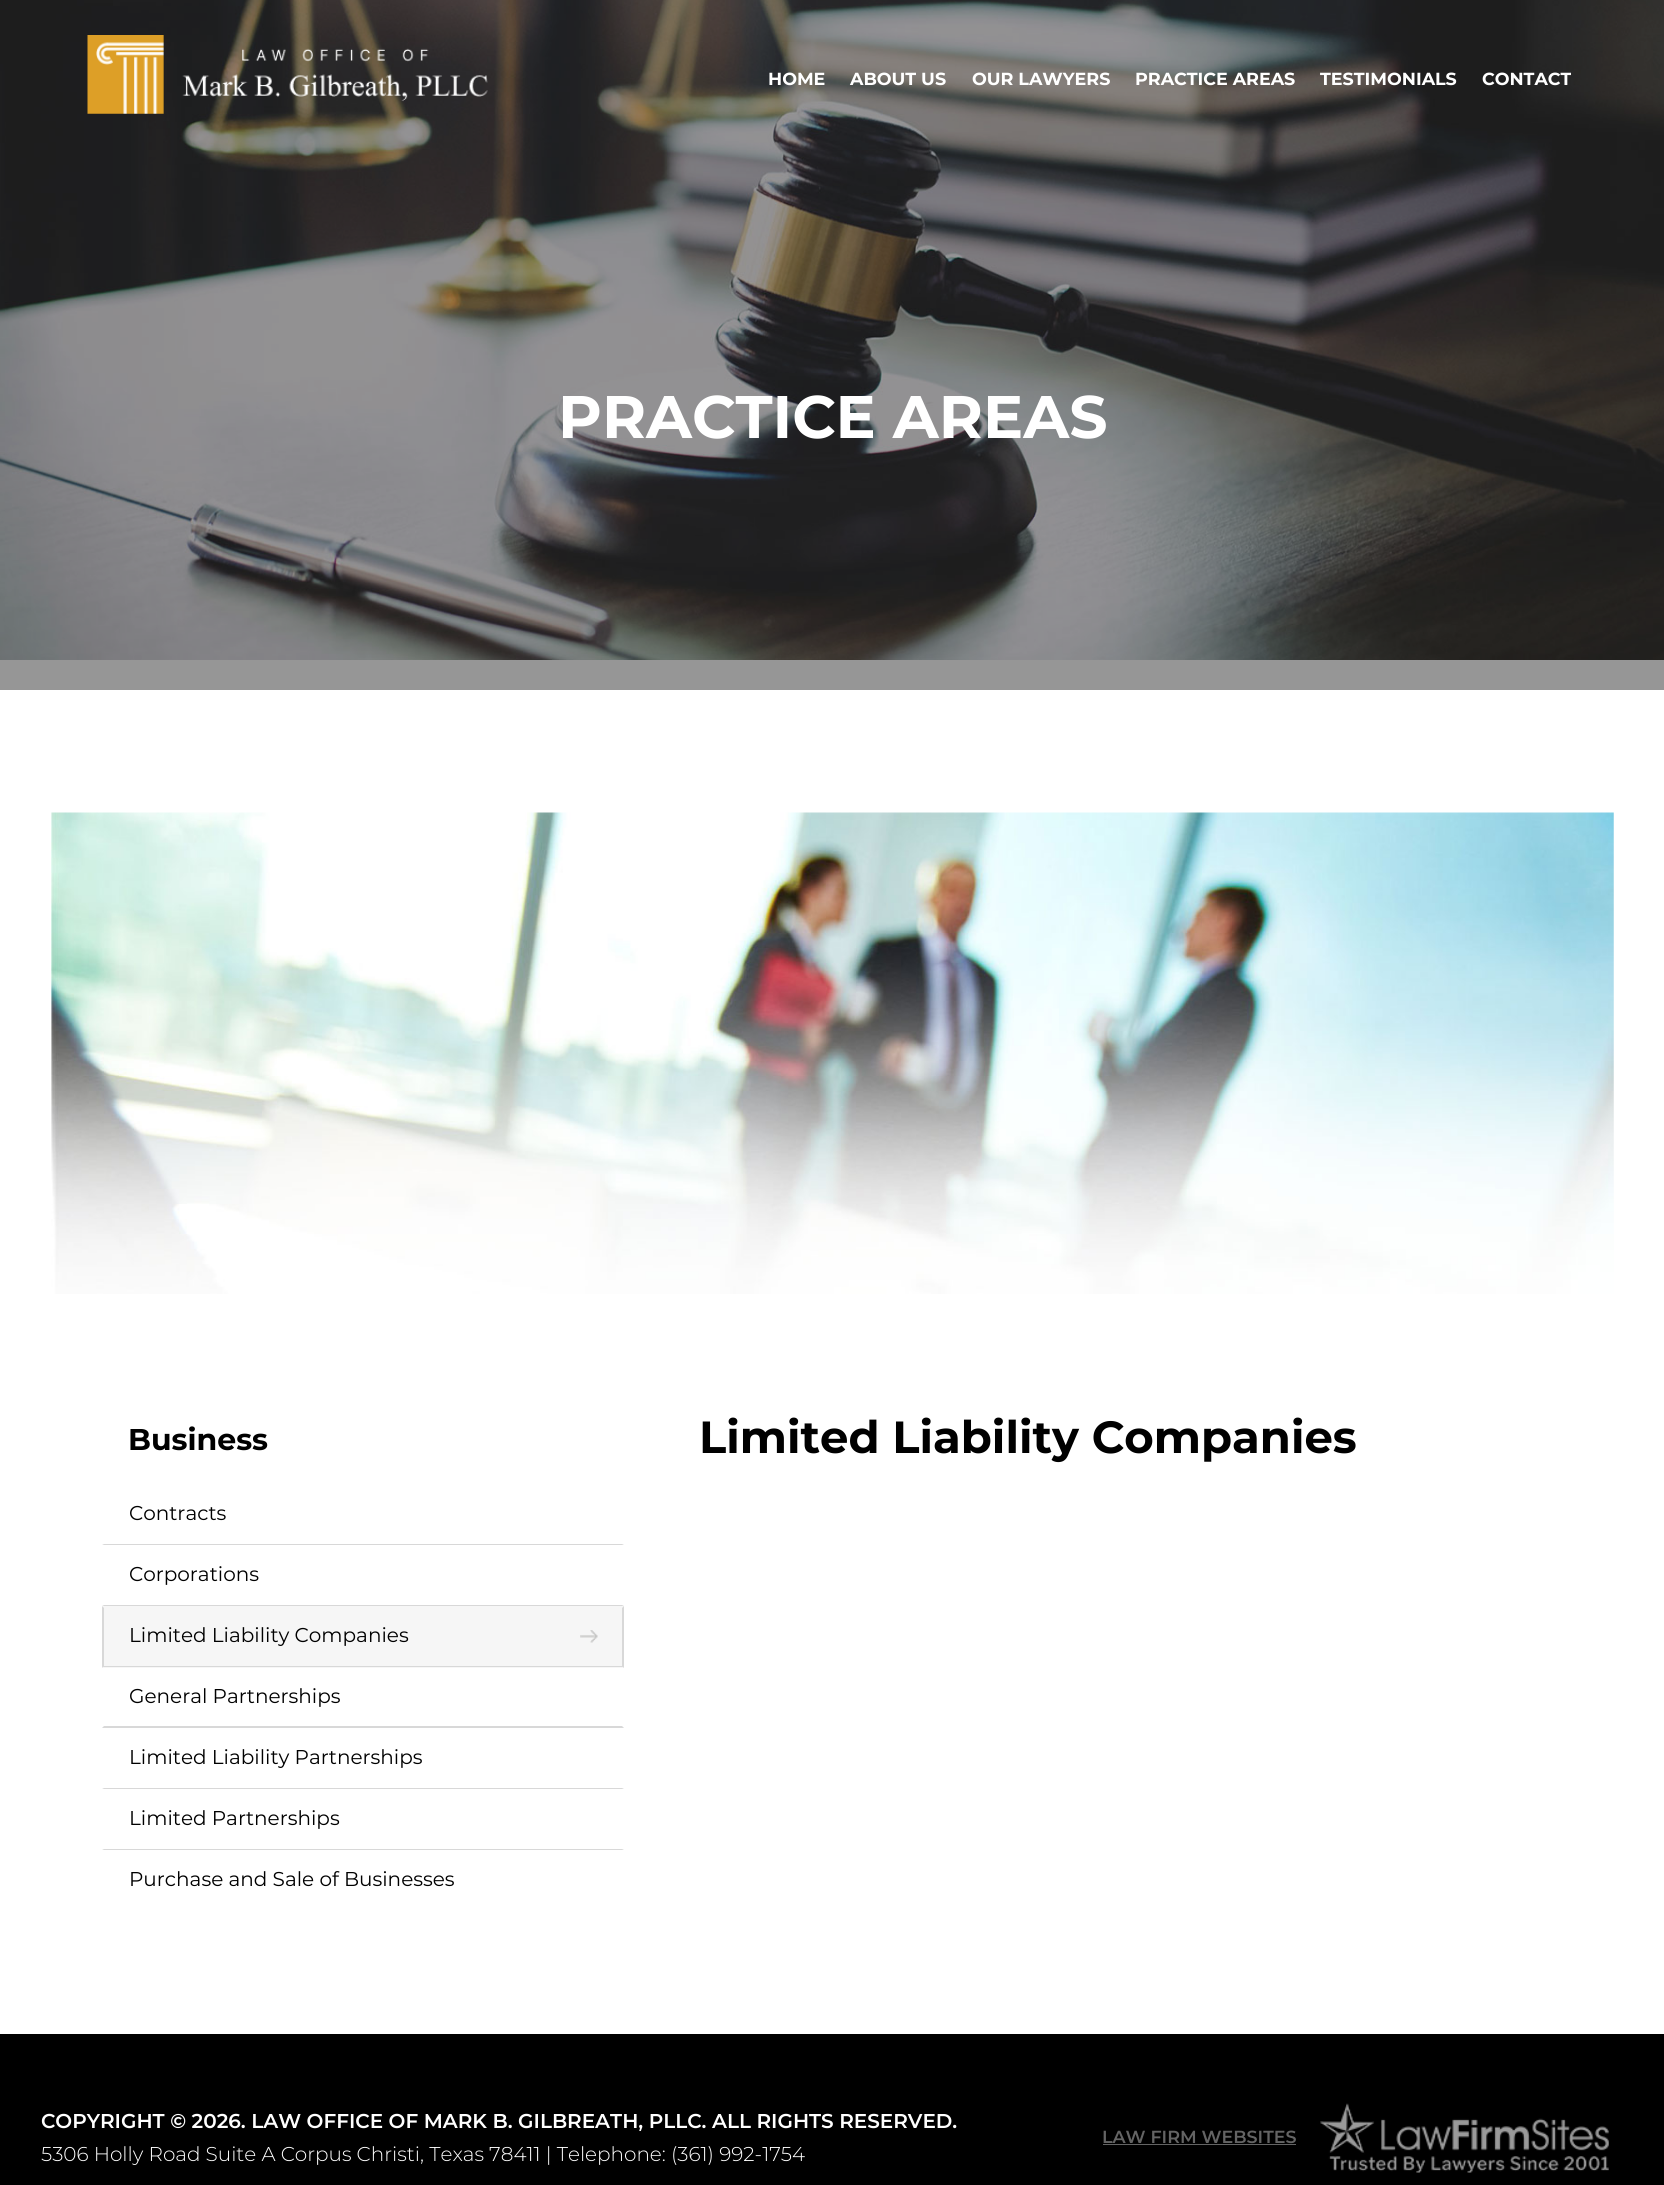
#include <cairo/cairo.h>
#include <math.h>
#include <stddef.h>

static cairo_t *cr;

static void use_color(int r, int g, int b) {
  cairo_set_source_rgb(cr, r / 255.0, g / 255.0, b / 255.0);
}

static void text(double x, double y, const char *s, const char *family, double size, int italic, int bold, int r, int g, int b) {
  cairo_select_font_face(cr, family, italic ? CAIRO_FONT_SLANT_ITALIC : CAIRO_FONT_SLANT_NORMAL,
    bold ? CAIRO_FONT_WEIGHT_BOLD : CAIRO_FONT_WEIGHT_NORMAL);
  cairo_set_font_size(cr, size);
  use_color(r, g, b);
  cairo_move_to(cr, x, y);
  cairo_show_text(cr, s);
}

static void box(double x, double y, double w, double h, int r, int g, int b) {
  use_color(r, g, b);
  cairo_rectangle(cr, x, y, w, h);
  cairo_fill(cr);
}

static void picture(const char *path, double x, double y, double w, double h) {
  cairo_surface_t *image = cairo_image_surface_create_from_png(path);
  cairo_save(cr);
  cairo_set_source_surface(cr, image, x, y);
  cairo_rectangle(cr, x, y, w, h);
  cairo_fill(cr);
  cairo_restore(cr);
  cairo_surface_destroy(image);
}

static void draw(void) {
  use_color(255, 255, 255);
  cairo_paint(cr);
  box(0, 660, 1664, 30, 150, 150, 150);
  picture("img_02.png", 0, 0, 1664, 660);
  picture("img_01.png", 87, 35, 401, 79);
  picture("img_03.png", 51, 812, 1563, 482);
  use_color(216, 216, 216);
  cairo_new_path(cr);
  cairo_move_to(cr, 624, 1545);
  cairo_line_to(cr, 102, 1545);
  cairo_line_to(cr, 104, 1544);
  cairo_line_to(cr, 622, 1544);
  cairo_close_path(cr);
  cairo_fill(cr);
  cairo_new_path(cr);
  cairo_move_to(cr, 624, 1606);
  cairo_line_to(cr, 102, 1606);
  cairo_line_to(cr, 104, 1605);
  cairo_line_to(cr, 622, 1605);
  cairo_close_path(cr);
  cairo_fill(cr);
  box(103, 1606, 521, 62, 246, 246, 246);
  picture("img_04.png", 580, 1630, 18, 13);
  use_color(216, 216, 216);
  cairo_new_path(cr);
  cairo_move_to(cr, 624, 1606);
  cairo_line_to(cr, 624, 1668);
  cairo_line_to(cr, 622, 1666);
  cairo_line_to(cr, 622, 1608);
  cairo_close_path(cr);
  cairo_fill(cr);
  box(103, 1666, 521, 1, 216, 216, 216);
  cairo_new_path(cr);
  cairo_move_to(cr, 102, 1668);
  cairo_line_to(cr, 102, 1606);
  cairo_line_to(cr, 104, 1608);
  cairo_line_to(cr, 104, 1666);
  cairo_close_path(cr);
  cairo_fill(cr);
  cairo_new_path(cr);
  cairo_move_to(cr, 624, 1728);
  cairo_line_to(cr, 102, 1728);
  cairo_line_to(cr, 104, 1726);
  cairo_line_to(cr, 622, 1726);
  cairo_close_path(cr);
  cairo_fill(cr);
  cairo_new_path(cr);
  cairo_move_to(cr, 624, 1789);
  cairo_line_to(cr, 102, 1789);
  cairo_line_to(cr, 104, 1788);
  cairo_line_to(cr, 622, 1788);
  cairo_close_path(cr);
  cairo_fill(cr);
  cairo_new_path(cr);
  cairo_move_to(cr, 624, 1850);
  cairo_line_to(cr, 102, 1850);
  cairo_line_to(cr, 104, 1849);
  cairo_line_to(cr, 622, 1849);
  cairo_close_path(cr);
  cairo_fill(cr);
  box(0, 2034, 1664, 151, 0, 0, 0);
  box(1103, 2144, 193, 1, 100, 100, 100);
  picture("img_05.png", 1320, 2103, 289, 70);
  text(768, 85, "HOME", "Montserrat", 17.5, 0, 1, 255, 255, 255);
  text(850, 85, "ABOUT US", "Montserrat", 17.5, 0, 1, 255, 255, 255);
  text(972, 85, "OUR LAWYERS", "Montserrat", 17.5, 0, 1, 255, 255, 255);
  text(1135, 85, "PRACTICE AREAS", "Montserrat", 17.5, 0, 1, 255, 255, 255);
  text(1320, 85, "TESTIMONIALS", "Montserrat", 17.5, 0, 1, 255, 255, 255);
  text(1482, 85, "CONTACT", "Montserrat", 17.5, 0, 1, 255, 255, 255);
  text(558, 438, "PRACTICE AREAS", "Montserrat", 60, 0, 1, 255, 255, 255);
  text(128, 1450, "Business", "Montserrat", 30, 0, 1, 0, 0, 0);
  text(129, 1520, "Contracts", "Montserrat", 20, 0, 0, 0, 0, 0);
  text(129, 1581, "Corporations", "Montserrat", 20, 0, 0, 0, 0, 0);
  text(129, 1642, "Limited Liability Companies", "Montserrat", 20, 0, 0, 0, 0, 0);
  text(129, 1703, "General Partnerships", "Montserrat", 20, 0, 0, 0, 0, 0);
  text(129, 1764, "Limited Liability Partnerships", "Montserrat", 20, 0, 0, 0, 0, 0);
  text(129, 1825, "Limited Partnerships", "Montserrat", 20, 0, 0, 0, 0, 0);
  text(129, 1886, "Purchase and Sale of Businesses", "Montserrat", 20, 0, 0, 0, 0, 0);
  text(699, 1453, "Limited Liability Companies", "Montserrat", 45, 0, 1, 0, 0, 0);
  text(41, 2128, "COPYRIGHT © 2026. LAW OFFICE OF MARK B. GILBREATH, PLLC. ALL RIGHTS RESERVED.", "Montserrat SemiBold", 20, 0, 0, 255, 255, 255);
  text(41, 2161, "5306 Holly Road Suite A Corpus Christi, Texas 78411 | Telephone: (361) 992-1754", "Montserrat Light", 20, 0, 0, 255, 255, 255);
  text(1102, 2143, "LAW FIRM WEBSITES", "Montserrat SemiBold", 17.5, 0, 0, 100, 100, 100);
}

int main(void) {
  cairo_surface_t *surface = cairo_image_surface_create(CAIRO_FORMAT_RGB24, 1664, 2185);
  cr = cairo_create(surface);
  cairo_font_options_t *options = cairo_font_options_create();
  cairo_font_options_set_hint_metrics(options, CAIRO_HINT_METRICS_OFF);
  cairo_font_options_set_hint_style(options, CAIRO_HINT_STYLE_NONE);
  cairo_set_font_options(cr, options);
  cairo_set_miter_limit(cr, 4);
  draw();
  cairo_surface_write_to_png(surface, "out.png");
  cairo_font_options_destroy(options);
  cairo_destroy(cr);
  cairo_surface_destroy(surface);
  return 0;
}
